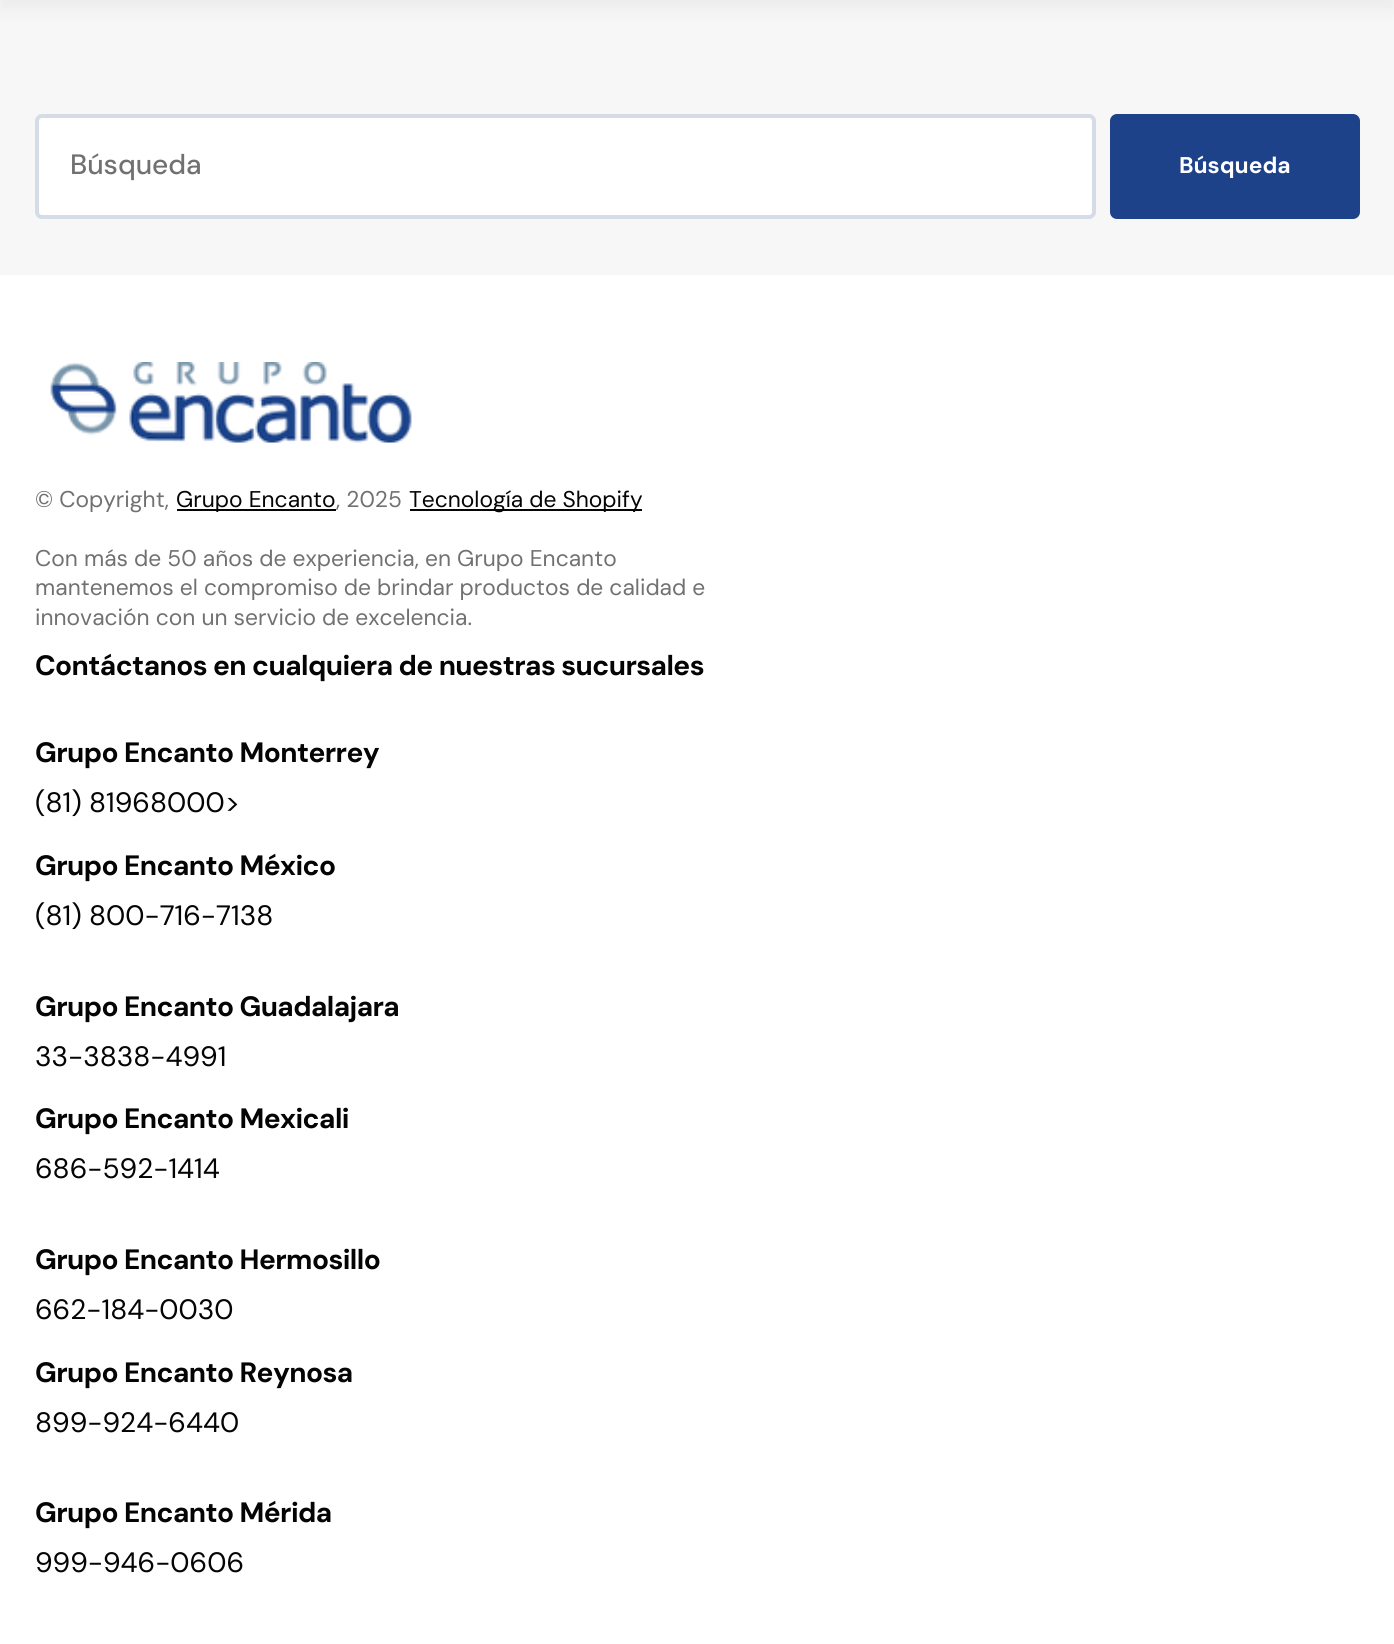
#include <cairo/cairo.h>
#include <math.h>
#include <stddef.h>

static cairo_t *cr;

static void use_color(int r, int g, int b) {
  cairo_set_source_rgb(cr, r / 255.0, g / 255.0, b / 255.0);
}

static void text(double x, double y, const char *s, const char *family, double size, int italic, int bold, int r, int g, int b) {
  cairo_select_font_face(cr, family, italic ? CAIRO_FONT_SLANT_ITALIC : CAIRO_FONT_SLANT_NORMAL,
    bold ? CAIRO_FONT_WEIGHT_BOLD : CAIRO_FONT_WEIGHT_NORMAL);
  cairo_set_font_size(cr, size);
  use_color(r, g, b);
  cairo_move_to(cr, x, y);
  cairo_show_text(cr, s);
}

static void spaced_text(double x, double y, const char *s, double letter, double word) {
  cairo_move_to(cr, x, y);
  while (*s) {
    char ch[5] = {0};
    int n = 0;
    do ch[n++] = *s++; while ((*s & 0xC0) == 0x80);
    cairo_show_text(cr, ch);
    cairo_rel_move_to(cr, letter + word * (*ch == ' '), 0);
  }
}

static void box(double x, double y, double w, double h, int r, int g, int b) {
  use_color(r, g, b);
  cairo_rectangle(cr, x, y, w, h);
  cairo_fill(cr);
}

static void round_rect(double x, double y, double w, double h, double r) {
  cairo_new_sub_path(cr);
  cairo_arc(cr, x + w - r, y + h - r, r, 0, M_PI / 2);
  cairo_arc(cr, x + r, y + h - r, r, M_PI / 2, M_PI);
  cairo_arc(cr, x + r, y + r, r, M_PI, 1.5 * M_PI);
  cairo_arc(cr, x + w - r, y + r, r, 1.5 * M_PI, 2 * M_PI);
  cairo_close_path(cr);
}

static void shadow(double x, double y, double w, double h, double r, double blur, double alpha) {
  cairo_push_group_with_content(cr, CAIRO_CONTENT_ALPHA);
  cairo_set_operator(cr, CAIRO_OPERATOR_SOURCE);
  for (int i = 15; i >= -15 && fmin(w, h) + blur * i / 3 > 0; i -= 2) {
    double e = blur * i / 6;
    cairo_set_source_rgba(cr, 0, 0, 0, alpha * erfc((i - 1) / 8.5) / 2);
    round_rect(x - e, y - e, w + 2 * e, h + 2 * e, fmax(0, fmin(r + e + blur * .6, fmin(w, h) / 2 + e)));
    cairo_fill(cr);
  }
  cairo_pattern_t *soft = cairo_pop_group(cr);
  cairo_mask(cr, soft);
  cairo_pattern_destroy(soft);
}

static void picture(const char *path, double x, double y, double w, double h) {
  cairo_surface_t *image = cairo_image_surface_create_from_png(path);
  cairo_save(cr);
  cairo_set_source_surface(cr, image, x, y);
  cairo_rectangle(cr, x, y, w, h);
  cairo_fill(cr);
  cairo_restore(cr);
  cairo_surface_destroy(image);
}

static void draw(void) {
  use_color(247, 247, 247);
  cairo_paint(cr);
  use_color(1, 1, 1);
  shadow(0, -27, 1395, 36, 0, 9, 0.05);
  use_color(255, 255, 255);
  round_rect(37, 116, 1057, 101, 5);
  cairo_fill_preserve(cr);
  use_color(213, 220, 231);
  cairo_set_line_width(cr, 4);
  cairo_stroke(cr);
  use_color(30, 66, 138);
  round_rect(1110, 114, 250, 105, 7);
  cairo_fill(cr);
  box(0, 275, 1394, 1369, 255, 255, 255);
  picture("img_01.png", 50, 362, 362, 81);
  box(177, 509, 159, 2, 4, 4, 4);
  box(410, 509, 232, 2, 4, 4, 4);
  text(70, 174, "Búsqueda", "DM Sans Medium", 28, 0, 0, 113, 113, 113);
  text(1179, 173, "Búsqueda", "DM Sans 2", 22.75, 0, 1, 255, 255, 255);
  text(35, 507, "© Copyright,", "DM Sans", 22.75, 0, 0, 113, 113, 113);
  text(176, 507, "Grupo Encanto", "DM Sans", 22.75, 0, 0, 4, 4, 4);
  text(336, 507, ", 2025", "DM Sans", 22.75, 0, 0, 113, 113, 113);
  text(409, 507, "Tecnología de Shopify", "DM Sans", 22.75, 0, 0, 4, 4, 4);
  text(35, 566, "Con más de 50 años de experiencia, en Grupo Encanto", "DM Sans", 22.75, 0, 0, 113, 113, 113);
  text(35, 595, "mantenemos el compromiso de brindar productos de calidad e", "DM Sans", 22.75, 0, 0, 113, 113, 113);
  text(35, 625, "innovación con un servicio de excelencia.", "DM Sans", 22.75, 0, 0, 113, 113, 113);
  cairo_select_font_face(cr, "DM Sans", CAIRO_FONT_SLANT_NORMAL, CAIRO_FONT_WEIGHT_BOLD);
  cairo_set_font_size(cr, 28);
  use_color(4, 4, 4);
  spaced_text(35, 675, "Contáctanos en cualquiera de nuestras sucursales", -0.55, 0);
  spaced_text(35, 762, "Grupo Encanto Monterrey", -0.55, 0);
  text(35, 812, "(81) 81968000>", "DM Sans 2", 28, 0, 0, 4, 4, 4);
  cairo_select_font_face(cr, "DM Sans", CAIRO_FONT_SLANT_NORMAL, CAIRO_FONT_WEIGHT_BOLD);
  spaced_text(35, 875, "Grupo Encanto México", -0.55, 0);
  text(35, 925, "(81) 800-716-7138", "DM Sans 2", 28, 0, 0, 4, 4, 4);
  cairo_select_font_face(cr, "DM Sans", CAIRO_FONT_SLANT_NORMAL, CAIRO_FONT_WEIGHT_BOLD);
  spaced_text(35, 1016, "Grupo Encanto Guadalajara", -0.55, 0);
  text(35, 1066, "33-3838-4991", "DM Sans 2", 28, 0, 0, 4, 4, 4);
  cairo_select_font_face(cr, "DM Sans", CAIRO_FONT_SLANT_NORMAL, CAIRO_FONT_WEIGHT_BOLD);
  spaced_text(35, 1128, "Grupo Encanto Mexicali", -0.55, 0);
  text(35, 1178, "686-592-1414", "DM Sans 2", 28, 0, 0, 4, 4, 4);
  cairo_select_font_face(cr, "DM Sans", CAIRO_FONT_SLANT_NORMAL, CAIRO_FONT_WEIGHT_BOLD);
  spaced_text(35, 1269, "Grupo Encanto Hermosillo", -0.55, 0);
  text(35, 1319, "662-184-0030", "DM Sans 2", 28, 0, 0, 4, 4, 4);
  cairo_select_font_face(cr, "DM Sans", CAIRO_FONT_SLANT_NORMAL, CAIRO_FONT_WEIGHT_BOLD);
  spaced_text(35, 1382, "Grupo Encanto Reynosa", -0.55, 0);
  text(35, 1432, "899-924-6440", "DM Sans 2", 28, 0, 0, 4, 4, 4);
  cairo_select_font_face(cr, "DM Sans", CAIRO_FONT_SLANT_NORMAL, CAIRO_FONT_WEIGHT_BOLD);
  spaced_text(35, 1522, "Grupo Encanto Mérida", -0.55, 0);
  text(35, 1572, "999-946-0606", "DM Sans 2", 28, 0, 0, 4, 4, 4);
}

int main(void) {
  cairo_surface_t *surface = cairo_image_surface_create(CAIRO_FORMAT_RGB24, 1394, 1644);
  cr = cairo_create(surface);
  cairo_font_options_t *options = cairo_font_options_create();
  cairo_font_options_set_hint_metrics(options, CAIRO_HINT_METRICS_OFF);
  cairo_font_options_set_hint_style(options, CAIRO_HINT_STYLE_NONE);
  cairo_set_font_options(cr, options);
  cairo_set_miter_limit(cr, 4);
  draw();
  cairo_surface_write_to_png(surface, "out.png");
  cairo_font_options_destroy(options);
  cairo_destroy(cr);
  cairo_surface_destroy(surface);
  return 0;
}
